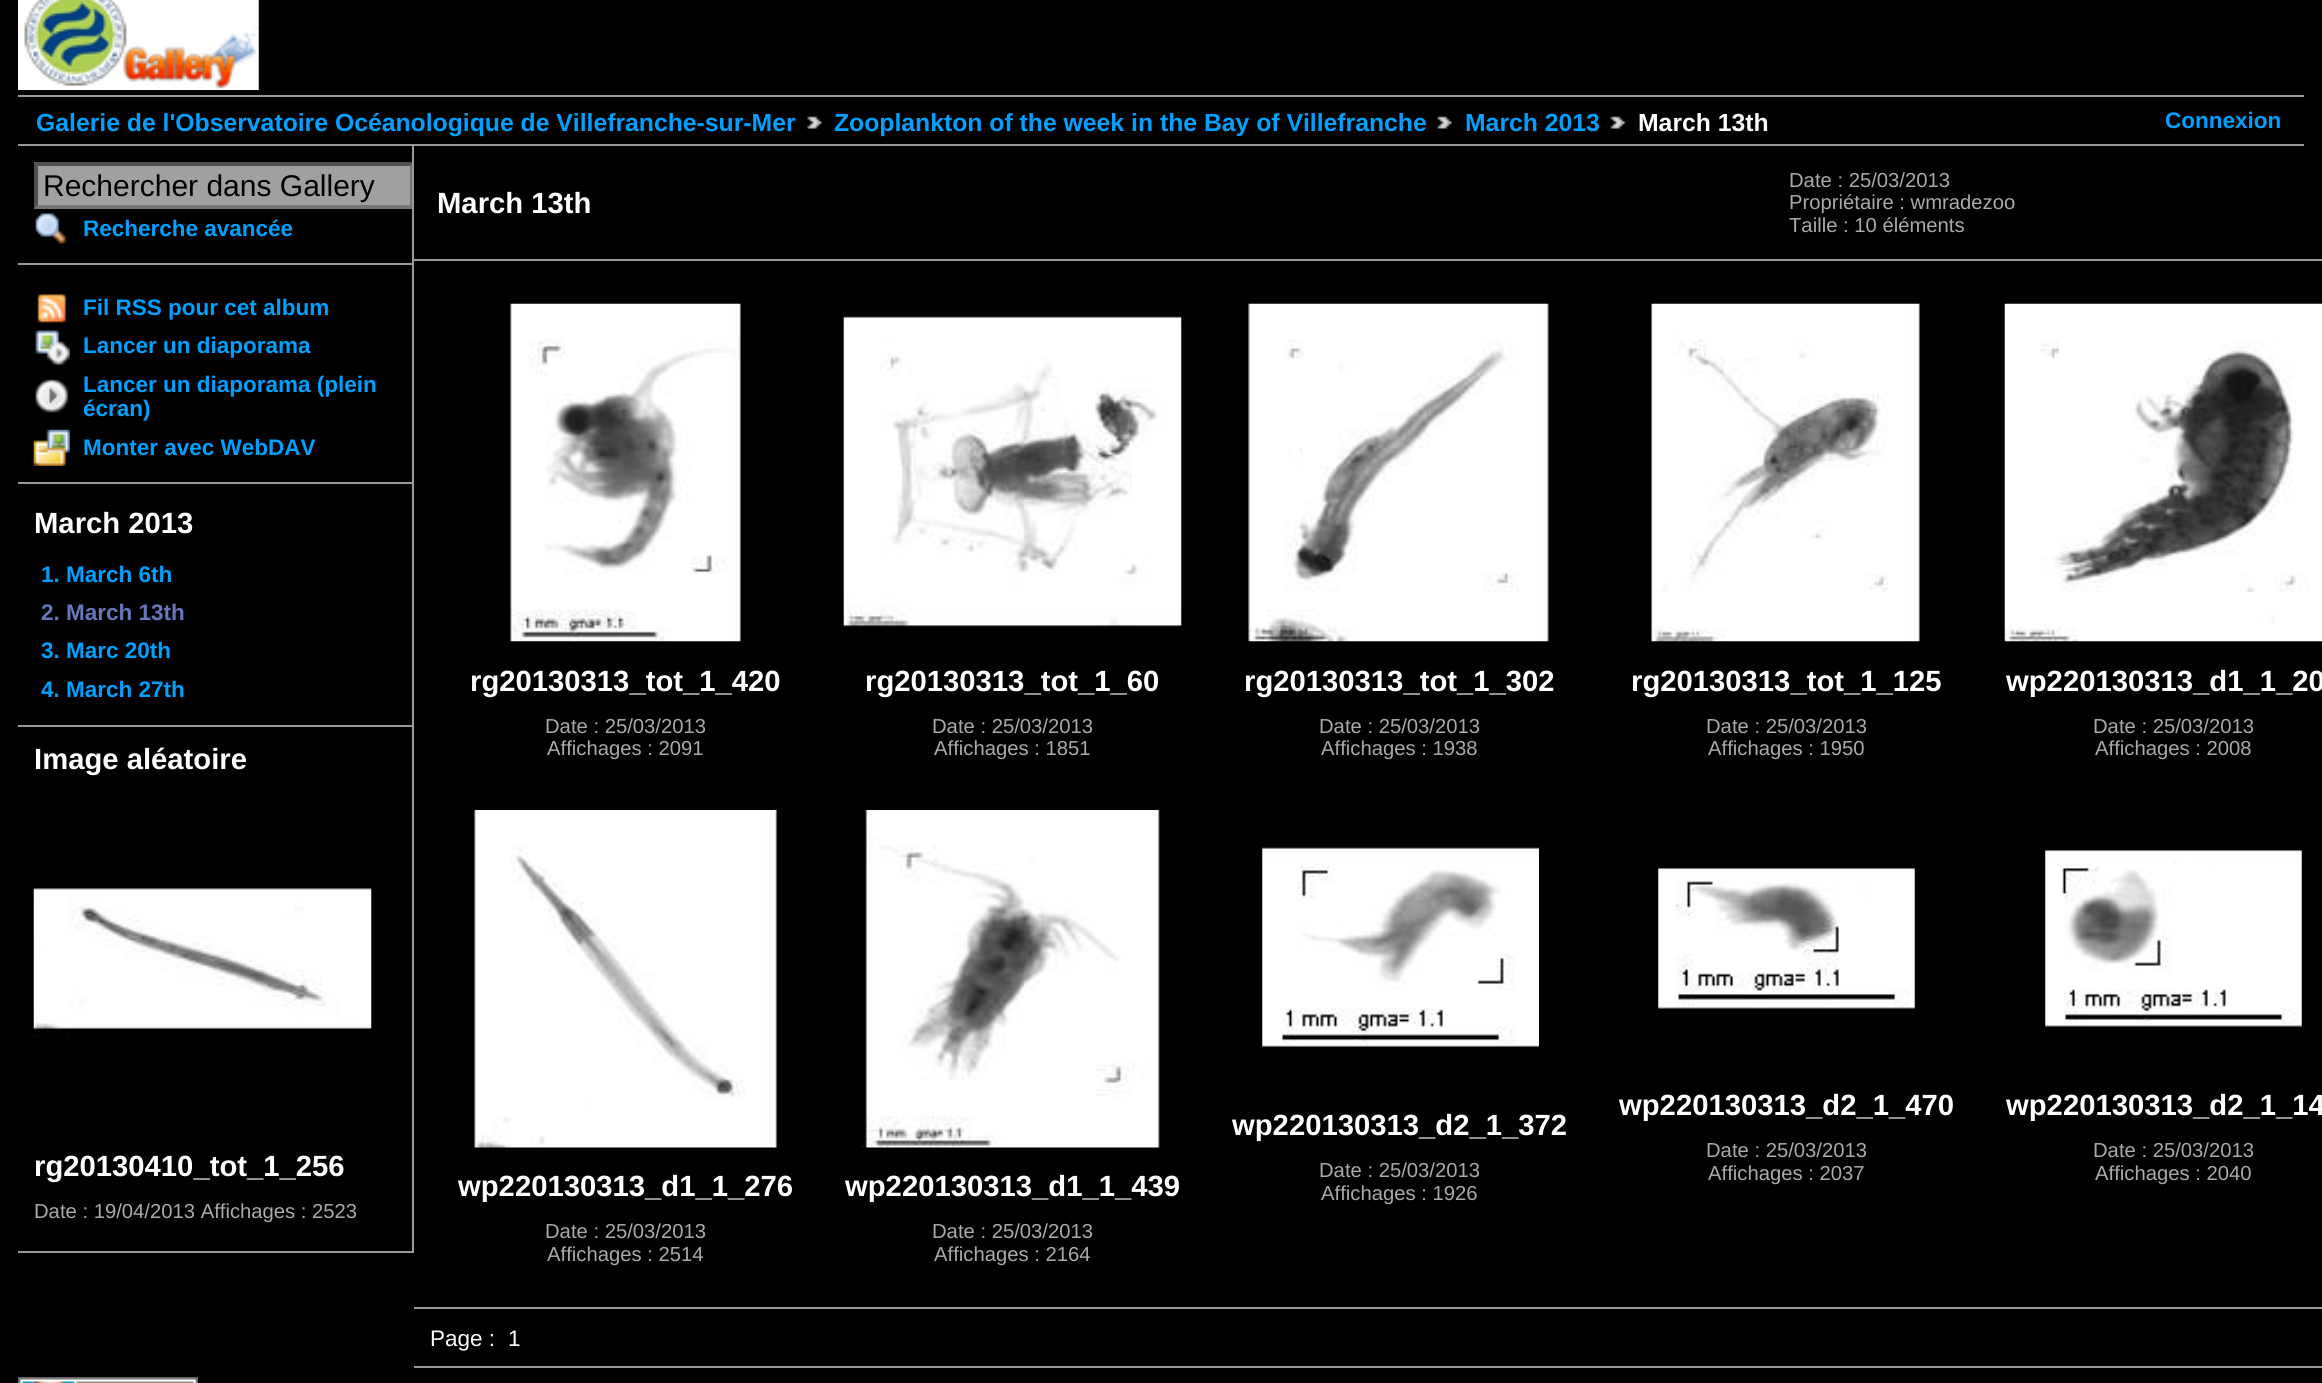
#include <cairo/cairo.h>
#include <math.h>
#include <stddef.h>

static cairo_t *cr;

static void use_color(int r, int g, int b) {
  cairo_set_source_rgb(cr, r / 255.0, g / 255.0, b / 255.0);
}

static void text(double x, double y, const char *s, const char *family, double size, int italic, int bold, int r, int g, int b) {
  cairo_select_font_face(cr, family, italic ? CAIRO_FONT_SLANT_ITALIC : CAIRO_FONT_SLANT_NORMAL,
    bold ? CAIRO_FONT_WEIGHT_BOLD : CAIRO_FONT_WEIGHT_NORMAL);
  cairo_set_font_size(cr, size);
  use_color(r, g, b);
  cairo_move_to(cr, x, y);
  cairo_show_text(cr, s);
}

static void box(double x, double y, double w, double h, int r, int g, int b) {
  use_color(r, g, b);
  cairo_rectangle(cr, x, y, w, h);
  cairo_fill(cr);
}

static void picture(const char *path, double x, double y, double w, double h) {
  cairo_surface_t *image = cairo_image_surface_create_from_png(path);
  cairo_save(cr);
  cairo_set_source_surface(cr, image, x, y);
  cairo_rectangle(cr, x, y, w, h);
  cairo_fill(cr);
  cairo_restore(cr);
  cairo_surface_destroy(image);
}

static void draw(void) {
  use_color(0, 0, 0);
  cairo_paint(cr);
  picture("img_01.png", 18, 0, 241, 90);
  box(18, 95, 2286, 2, 153, 153, 153);
  box(18, 144, 2286, 2, 153, 153, 153);
  picture("img_02.png", 807, 116, 15, 13);
  picture("img_03.png", 1437, 116, 15, 13);
  picture("img_04.png", 1610, 116, 16, 13);
  box(412, 146, 2, 1107, 153, 153, 153);
  box(18, 263, 394, 2, 153, 153, 153);
  box(34, 162, 378, 47, 160, 160, 160);
  cairo_save(cr);
  cairo_rectangle(cr, 18, 146, 394, 1107);
  cairo_clip(cr);
  use_color(79, 79, 79);
  cairo_new_path(cr);
  cairo_move_to(cr, 34, 162);
  cairo_line_to(cr, 414, 162);
  cairo_line_to(cr, 410, 166);
  cairo_line_to(cr, 38, 166);
  cairo_close_path(cr);
  cairo_fill(cr);
  use_color(118, 118, 118);
  cairo_new_path(cr);
  cairo_move_to(cr, 414, 162);
  cairo_line_to(cr, 414, 209);
  cairo_line_to(cr, 410, 205);
  cairo_line_to(cr, 410, 166);
  cairo_close_path(cr);
  cairo_fill(cr);
  cairo_new_path(cr);
  cairo_move_to(cr, 414, 209);
  cairo_line_to(cr, 34, 209);
  cairo_line_to(cr, 38, 205);
  cairo_line_to(cr, 410, 205);
  cairo_close_path(cr);
  cairo_fill(cr);
  cairo_restore(cr);
  use_color(79, 79, 79);
  cairo_new_path(cr);
  cairo_move_to(cr, 34, 209);
  cairo_line_to(cr, 34, 162);
  cairo_line_to(cr, 38, 166);
  cairo_line_to(cr, 38, 205);
  cairo_close_path(cr);
  cairo_fill(cr);
  picture("img_05.png", 35, 213, 31, 33);
  box(18, 482, 394, 2, 153, 153, 153);
  picture("img_06.png", 37, 294, 29, 29);
  picture("img_07.png", 35, 330, 35, 35);
  picture("img_08.png", 35, 379, 34, 34);
  picture("img_09.png", 33, 429, 37, 37);
  box(18, 725, 394, 2, 153, 153, 153);
  box(18, 1251, 394, 2, 153, 153, 153);
  picture("img_10.png", 33, 888, 339, 154);
  box(414, 259, 1908, 2, 153, 153, 153);
  box(414, 1307, 1908, 2, 153, 153, 153);
  picture("img_11.png", 510, 303, 231, 339);
  picture("img_12.png", 843, 316, 339, 311);
  picture("img_13.png", 1248, 303, 301, 339);
  picture("img_14.png", 1651, 303, 269, 339);
  picture("img_15.png", 2004, 303, 318, 339);
  picture("img_16.png", 1262, 847, 277, 200);
  picture("img_17.png", 1658, 868, 257, 141);
  picture("img_18.png", 2045, 850, 257, 177);
  picture("img_19.png", 474, 810, 303, 338);
  picture("img_20.png", 861, 810, 299, 338);
  box(414, 1366, 1908, 2, 153, 153, 153);
  picture("img_21.png", 18, 1377, 180, 6);
  text(36, 131, "Galerie de l'Observatoire Océanologique de Villefranche-sur-Mer", "Liberation Sans", 24.75, 0, 1, 0, 160, 255);
  text(834, 131, "Zooplankton of the week in the Bay of Villefranche", "Liberation Sans", 24.75, 0, 1, 0, 160, 255);
  text(1465, 131, "March 2013", "Liberation Sans", 24.75, 0, 1, 0, 160, 255);
  text(1638, 131, "March 13th", "Liberation Sans", 24.75, 0, 1, 255, 255, 255);
  text(2165, 128, "Connexion", "Liberation Sans", 22.5, 0, 1, 0, 160, 255);
  text(43, 196, "Rechercher dans Gallery", "Liberation Sans", 30, 0, 0, 0, 0, 0);
  text(83, 236, "Recherche avancée", "Liberation Sans", 22.5, 0, 1, 0, 160, 255);
  text(83, 315, "Fil RSS pour cet album", "Liberation Sans", 22.5, 0, 1, 0, 160, 255);
  text(83, 353, "Lancer un diaporama", "Liberation Sans", 22.5, 0, 1, 0, 160, 255);
  text(83, 392, "Lancer un diaporama (plein", "Liberation Sans", 22.5, 0, 1, 0, 160, 255);
  text(83, 416, "écran)", "Liberation Sans", 22.5, 0, 1, 0, 160, 255);
  text(83, 455, "Monter avec WebDAV", "Liberation Sans", 22.5, 0, 1, 0, 160, 255);
  text(34, 533, "March 2013", "Liberation Sans", 29.25, 0, 1, 255, 255, 255);
  text(41, 582, "1. March 6th", "Liberation Sans", 22.5, 0, 1, 0, 160, 255);
  text(41, 620, "2. March 13th", "Liberation Sans", 22.5, 0, 1, 102, 119, 187);
  text(41, 658, "3. Marc 20th", "Liberation Sans", 22.5, 0, 1, 0, 160, 255);
  text(41, 697, "4. March 27th", "Liberation Sans", 22.5, 0, 1, 0, 160, 255);
  text(34, 769, "Image aléatoire", "Liberation Sans", 29.25, 0, 1, 255, 255, 255);
  text(34, 1176, "rg20130410_tot_1_256", "Liberation Sans", 29.25, 0, 1, 255, 255, 255);
  text(34, 1218, "Date : 19/04/2013 Affichages : 2523", "Liberation Sans", 20.25, 0, 0, 170, 170, 170);
  text(437, 213, "March 13th", "Liberation Sans", 29.25, 0, 1, 255, 255, 255);
  text(1789, 187, "Date : 25/03/2013", "Liberation Sans", 20.25, 0, 0, 170, 170, 170);
  text(1789, 209, "Propriétaire : wmradezoo", "Liberation Sans", 20.25, 0, 0, 170, 170, 170);
  text(1789, 232, "Taille : 10 éléments", "Liberation Sans", 20.25, 0, 0, 170, 170, 170);
  text(470, 691, "rg20130313_tot_1_420", "Liberation Sans", 29.25, 0, 1, 255, 255, 255);
  text(545, 733, "Date : 25/03/2013", "Liberation Sans", 20.25, 0, 0, 170, 170, 170);
  text(547, 755, "Affichages : 2091", "Liberation Sans", 20.25, 0, 0, 170, 170, 170);
  text(865, 691, "rg20130313_tot_1_60", "Liberation Sans", 29.25, 0, 1, 255, 255, 255);
  text(932, 733, "Date : 25/03/2013", "Liberation Sans", 20.25, 0, 0, 170, 170, 170);
  text(934, 755, "Affichages : 1851", "Liberation Sans", 20.25, 0, 0, 170, 170, 170);
  text(1244, 691, "rg20130313_tot_1_302", "Liberation Sans", 29.25, 0, 1, 255, 255, 255);
  text(1319, 733, "Date : 25/03/2013", "Liberation Sans", 20.25, 0, 0, 170, 170, 170);
  text(1321, 755, "Affichages : 1938", "Liberation Sans", 20.25, 0, 0, 170, 170, 170);
  text(1631, 691, "rg20130313_tot_1_125", "Liberation Sans", 29.25, 0, 1, 255, 255, 255);
  text(1706, 733, "Date : 25/03/2013", "Liberation Sans", 20.25, 0, 0, 170, 170, 170);
  text(1708, 755, "Affichages : 1950", "Liberation Sans", 20.25, 0, 0, 170, 170, 170);
  text(2006, 691, "wp220130313_d1_1_20", "Liberation Sans", 29.25, 0, 1, 255, 255, 255);
  text(2093, 733, "Date : 25/03/2013", "Liberation Sans", 20.25, 0, 0, 170, 170, 170);
  text(2095, 755, "Affichages : 2008", "Liberation Sans", 20.25, 0, 0, 170, 170, 170);
  text(1232, 1135, "wp220130313_d2_1_372", "Liberation Sans", 29.25, 0, 1, 255, 255, 255);
  text(1319, 1177, "Date : 25/03/2013", "Liberation Sans", 20.25, 0, 0, 170, 170, 170);
  text(1321, 1200, "Affichages : 1926", "Liberation Sans", 20.25, 0, 0, 170, 170, 170);
  text(1619, 1115, "wp220130313_d2_1_470", "Liberation Sans", 29.25, 0, 1, 255, 255, 255);
  text(1706, 1157, "Date : 25/03/2013", "Liberation Sans", 20.25, 0, 0, 170, 170, 170);
  text(1708, 1180, "Affichages : 2037", "Liberation Sans", 20.25, 0, 0, 170, 170, 170);
  text(2006, 1115, "wp220130313_d2_1_14", "Liberation Sans", 29.25, 0, 1, 255, 255, 255);
  text(2093, 1157, "Date : 25/03/2013", "Liberation Sans", 20.25, 0, 0, 170, 170, 170);
  text(2095, 1180, "Affichages : 2040", "Liberation Sans", 20.25, 0, 0, 170, 170, 170);
  text(458, 1196, "wp220130313_d1_1_276", "Liberation Sans", 29.25, 0, 1, 255, 255, 255);
  text(545, 1238, "Date : 25/03/2013", "Liberation Sans", 20.25, 0, 0, 170, 170, 170);
  text(547, 1261, "Affichages : 2514", "Liberation Sans", 20.25, 0, 0, 170, 170, 170);
  text(845, 1196, "wp220130313_d1_1_439", "Liberation Sans", 29.25, 0, 1, 255, 255, 255);
  text(932, 1238, "Date : 25/03/2013", "Liberation Sans", 20.25, 0, 0, 170, 170, 170);
  text(934, 1261, "Affichages : 2164", "Liberation Sans", 20.25, 0, 0, 170, 170, 170);
  text(430, 1346, "Page :", "Liberation Sans", 22.5, 0, 0, 255, 255, 255);
  text(508, 1346, "1", "Liberation Sans", 22.5, 0, 0, 255, 255, 255);
}

int main(void) {
  cairo_surface_t *surface = cairo_image_surface_create(CAIRO_FORMAT_RGB24, 2322, 1383);
  cr = cairo_create(surface);
  cairo_font_options_t *options = cairo_font_options_create();
  cairo_font_options_set_hint_metrics(options, CAIRO_HINT_METRICS_OFF);
  cairo_font_options_set_hint_style(options, CAIRO_HINT_STYLE_NONE);
  cairo_set_font_options(cr, options);
  cairo_set_miter_limit(cr, 4);
  draw();
  cairo_surface_write_to_png(surface, "out.png");
  cairo_font_options_destroy(options);
  cairo_destroy(cr);
  cairo_surface_destroy(surface);
  return 0;
}
